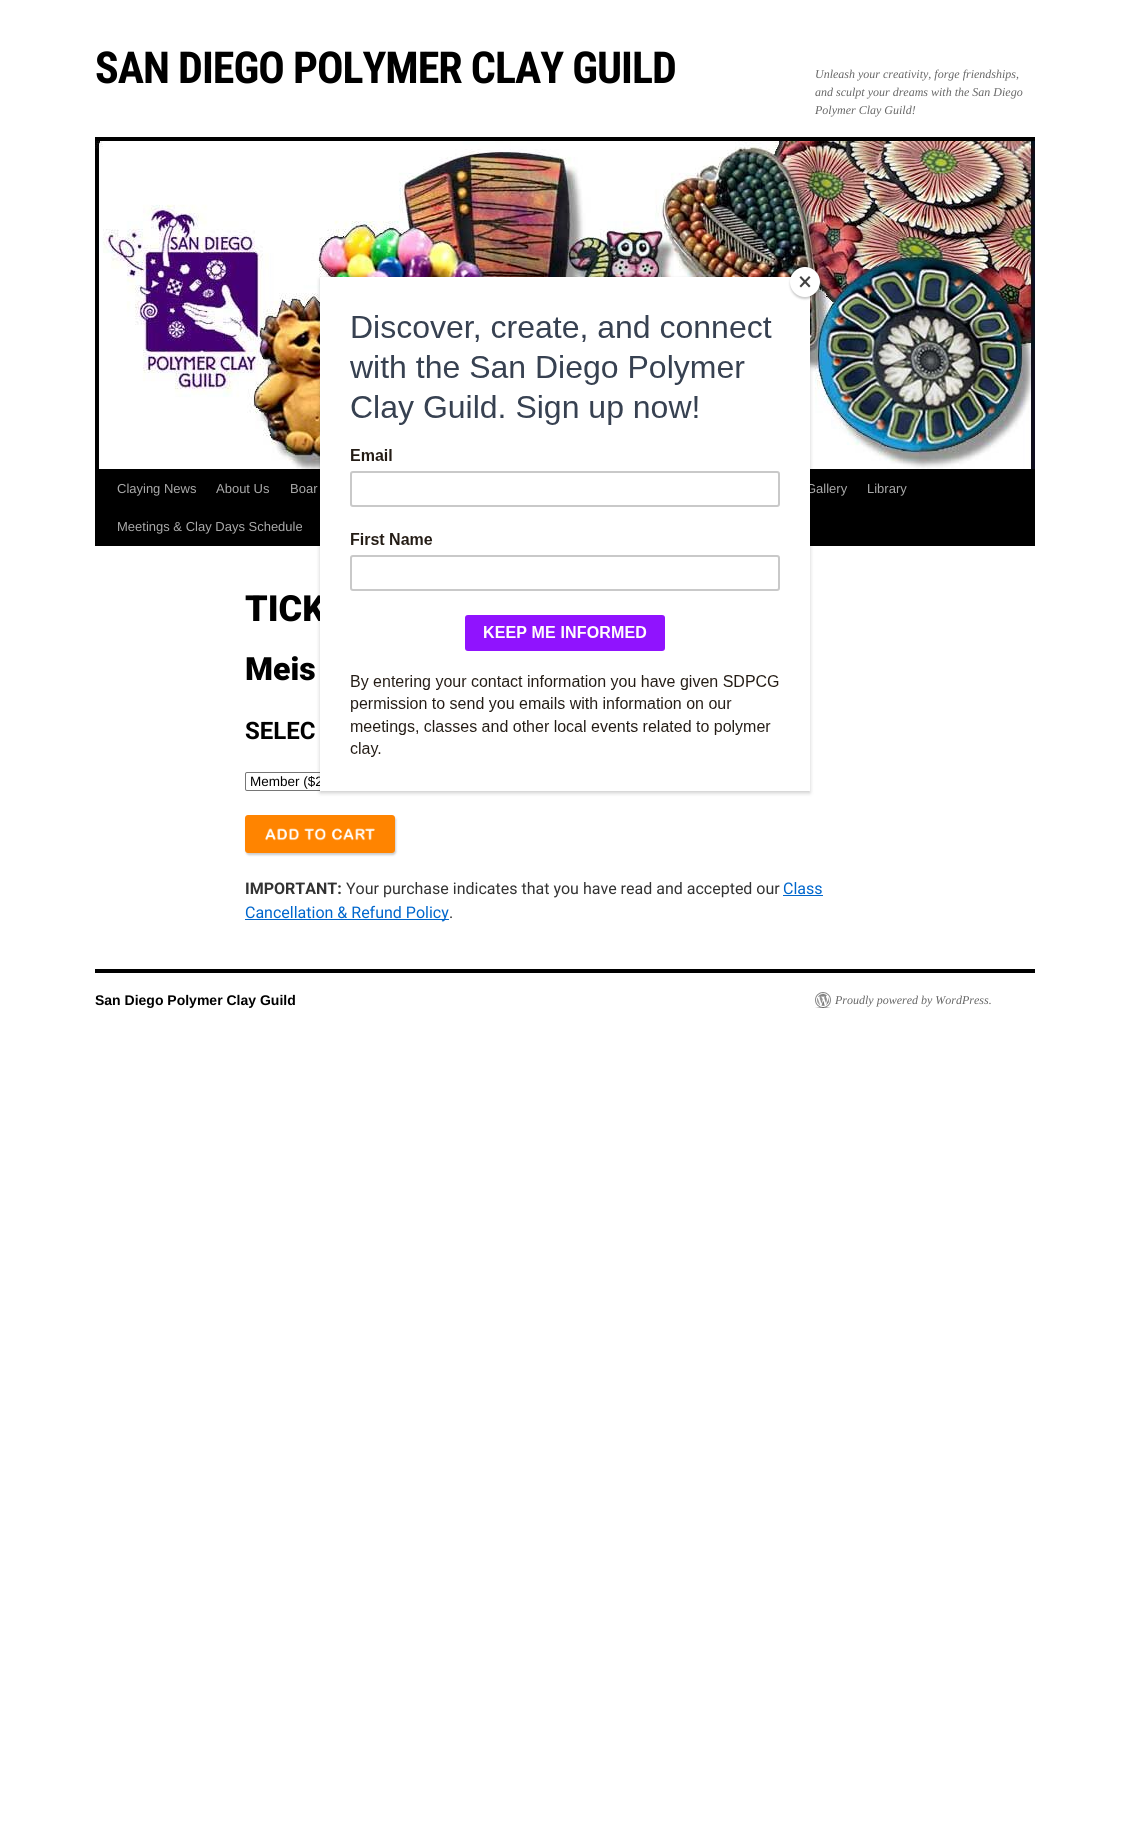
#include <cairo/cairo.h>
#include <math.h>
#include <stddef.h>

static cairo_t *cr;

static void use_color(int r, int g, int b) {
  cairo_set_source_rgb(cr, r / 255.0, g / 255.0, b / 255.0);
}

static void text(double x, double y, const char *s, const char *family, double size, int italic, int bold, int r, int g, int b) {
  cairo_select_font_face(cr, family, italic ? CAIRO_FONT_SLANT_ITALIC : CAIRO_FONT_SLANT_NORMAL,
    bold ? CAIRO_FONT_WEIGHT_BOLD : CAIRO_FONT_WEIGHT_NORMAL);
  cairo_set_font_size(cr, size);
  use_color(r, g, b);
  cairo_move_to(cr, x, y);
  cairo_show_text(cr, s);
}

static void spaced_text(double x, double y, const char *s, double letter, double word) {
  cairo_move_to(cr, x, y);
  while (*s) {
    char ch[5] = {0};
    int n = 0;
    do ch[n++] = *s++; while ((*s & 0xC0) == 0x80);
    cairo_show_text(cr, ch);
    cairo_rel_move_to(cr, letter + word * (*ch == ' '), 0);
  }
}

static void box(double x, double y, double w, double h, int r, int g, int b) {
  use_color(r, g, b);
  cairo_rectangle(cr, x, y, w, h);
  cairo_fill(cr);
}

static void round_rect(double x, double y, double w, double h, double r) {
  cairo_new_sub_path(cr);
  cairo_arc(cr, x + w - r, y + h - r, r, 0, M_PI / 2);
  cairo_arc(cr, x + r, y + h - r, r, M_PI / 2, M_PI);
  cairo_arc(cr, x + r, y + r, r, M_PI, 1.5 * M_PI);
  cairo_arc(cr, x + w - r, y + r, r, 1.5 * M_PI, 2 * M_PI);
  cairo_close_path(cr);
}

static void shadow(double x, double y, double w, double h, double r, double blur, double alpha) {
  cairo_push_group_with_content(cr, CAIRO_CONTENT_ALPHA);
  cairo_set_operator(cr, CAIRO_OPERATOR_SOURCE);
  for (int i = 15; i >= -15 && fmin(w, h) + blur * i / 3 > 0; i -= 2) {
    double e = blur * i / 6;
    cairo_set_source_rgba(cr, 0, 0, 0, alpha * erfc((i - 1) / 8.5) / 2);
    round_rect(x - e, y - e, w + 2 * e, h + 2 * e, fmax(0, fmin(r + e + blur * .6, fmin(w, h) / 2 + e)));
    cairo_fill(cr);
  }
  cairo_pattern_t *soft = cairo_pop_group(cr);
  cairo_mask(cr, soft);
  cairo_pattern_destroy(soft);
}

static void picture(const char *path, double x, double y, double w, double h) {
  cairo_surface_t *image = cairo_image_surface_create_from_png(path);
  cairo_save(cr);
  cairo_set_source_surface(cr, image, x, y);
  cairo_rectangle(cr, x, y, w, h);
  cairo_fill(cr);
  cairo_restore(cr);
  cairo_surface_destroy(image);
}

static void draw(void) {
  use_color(255, 255, 255);
  cairo_paint(cr);
  box(95, 137, 940, 4, 0, 0, 0);
  box(95, 469, 940, 77, 0, 0, 0);
  picture("img_01.png", 95, 141, 940, 328);
  round_rect(245.5, 772.5, 141, 18, 1.5);
  use_color(118, 118, 118);
  cairo_set_line_width(cr, 1);
  cairo_stroke(cr);
  use_color(0, 0, 0);
  shadow(246, 817, 150, 38, 3, 1, 0.2);
  use_color(255, 132, 0);
  round_rect(245, 815, 150, 38, 3);
  cairo_fill(cr);
  picture("img_02.png", 265, 828, 110, 13);
  box(783, 895, 40, 1, 0, 102, 204);
  box(245, 919, 204, 1, 0, 102, 204);
  box(95, 969, 940, 4, 0, 0, 0);
  picture("img_03.png", 815, 992, 16, 16);
  use_color(0, 0, 0);
  shadow(320, 279, 490, 514, 0, 2, 0.2);
  cairo_select_font_face(cr, "Roboto Condensed", CAIRO_FONT_SLANT_NORMAL, CAIRO_FONT_WEIGHT_BOLD);
  cairo_set_font_size(cr, 44);
  use_color(0, 0, 0);
  spaced_text(95, 83, "SAN DIEGO POLYMER CLAY GUILD", -1, 0);
  text(815, 78, "Unleash your creativity, forge friendships,", "Liberation Serif", 12, 1, 0, 102, 102, 102);
  text(815, 96, "and sculpt your dreams with the San Diego", "Liberation Serif", 12, 1, 0, 102, 102, 102);
  text(815, 114, "Polymer Clay Guild!", "Liberation Serif", 12, 1, 0, 102, 102, 102);
  text(117, 493, "Claying News", "Liberation Sans", 13, 0, 0, 170, 170, 170);
  text(216, 493, "About Us", "Liberation Sans", 13, 0, 0, 170, 170, 170);
  text(290, 493, "Boar", "Liberation Sans", 13, 0, 0, 170, 170, 170);
  text(806, 493, "Gallery", "Liberation Sans", 13, 0, 0, 170, 170, 170);
  text(867, 493, "Library", "Liberation Sans", 13, 0, 0, 170, 170, 170);
  text(117, 531, "Meetings & Clay Days Schedule", "Liberation Sans", 13, 0, 0, 170, 170, 170);
  text(245, 621, "TICK", "Roboto Black", 36, 0, 0, 0, 0, 0);
  text(245, 680, "Meis", "Roboto Black", 32, 0, 0, 0, 0, 0);
  text(245, 739, "SELEC", "Roboto", 24, 0, 1, 0, 0, 0);
  text(250, 786, "Member ($2", "Liberation Sans", 13.5, 0, 0, 0, 0, 0);
  text(245, 894, "IMPORTANT:", "Roboto", 16, 0, 1, 51, 51, 51);
  text(346, 894, "Your purchase indicates that you have read and accepted our", "Roboto", 16, 0, 0, 51, 51, 51);
  text(783, 894, "Class", "Roboto", 16, 0, 0, 0, 102, 204);
  text(245, 918, "Cancellation & Refund Policy", "Roboto", 16, 0, 0, 0, 102, 204);
  text(449, 918, ".", "Roboto", 16, 0, 0, 51, 51, 51);
  text(95, 1005, "San Diego Polymer Clay Guild", "Liberation Sans", 14, 0, 1, 0, 0, 0);
  text(835, 1004, "Proudly powered by WordPress.", "Liberation Serif", 12, 1, 0, 102, 102, 102);
  picture("img_04.png", 320, 277, 490, 514);
  use_color(0, 0, 0);
  shadow(790, 269, 30, 30, 15, 1, 0.2);
  use_color(255, 255, 255);
  cairo_arc(cr, 805, 282, 15, 0, 2 * M_PI);
  cairo_fill(cr);
  use_color(65, 65, 65);
  cairo_new_path(cr);
  cairo_move_to(cr, 809, 276);
  cairo_line_to(cr, 810.5, 277.5);
  cairo_line_to(cr, 801, 287.5);
  cairo_line_to(cr, 799.5, 286);
  cairo_close_path(cr);
  cairo_fill(cr);
  cairo_new_path(cr);
  cairo_move_to(cr, 799.5, 277.5);
  cairo_line_to(cr, 801, 276);
  cairo_line_to(cr, 810.5, 286);
  cairo_line_to(cr, 809, 287.5);
  cairo_close_path(cr);
  cairo_fill(cr);
}

int main(void) {
  cairo_surface_t *surface = cairo_image_surface_create(CAIRO_FORMAT_RGB24, 1130, 1844);
  cr = cairo_create(surface);
  cairo_font_options_t *options = cairo_font_options_create();
  cairo_font_options_set_hint_metrics(options, CAIRO_HINT_METRICS_OFF);
  cairo_font_options_set_hint_style(options, CAIRO_HINT_STYLE_NONE);
  cairo_set_font_options(cr, options);
  cairo_set_miter_limit(cr, 4);
  draw();
  cairo_surface_write_to_png(surface, "out.png");
  cairo_font_options_destroy(options);
  cairo_destroy(cr);
  cairo_surface_destroy(surface);
  return 0;
}
